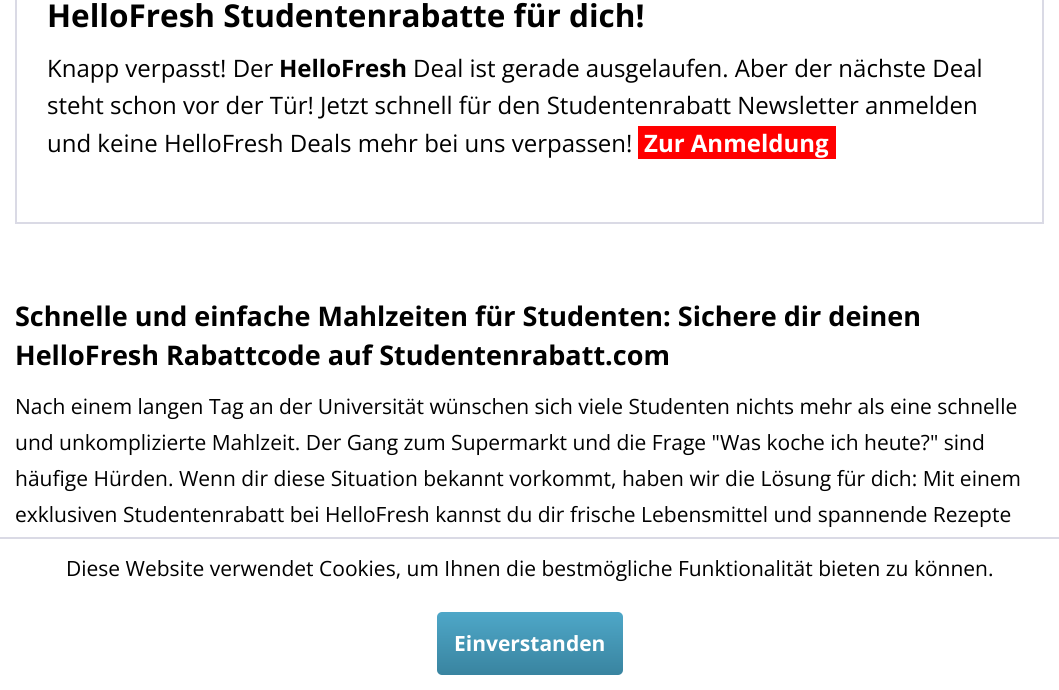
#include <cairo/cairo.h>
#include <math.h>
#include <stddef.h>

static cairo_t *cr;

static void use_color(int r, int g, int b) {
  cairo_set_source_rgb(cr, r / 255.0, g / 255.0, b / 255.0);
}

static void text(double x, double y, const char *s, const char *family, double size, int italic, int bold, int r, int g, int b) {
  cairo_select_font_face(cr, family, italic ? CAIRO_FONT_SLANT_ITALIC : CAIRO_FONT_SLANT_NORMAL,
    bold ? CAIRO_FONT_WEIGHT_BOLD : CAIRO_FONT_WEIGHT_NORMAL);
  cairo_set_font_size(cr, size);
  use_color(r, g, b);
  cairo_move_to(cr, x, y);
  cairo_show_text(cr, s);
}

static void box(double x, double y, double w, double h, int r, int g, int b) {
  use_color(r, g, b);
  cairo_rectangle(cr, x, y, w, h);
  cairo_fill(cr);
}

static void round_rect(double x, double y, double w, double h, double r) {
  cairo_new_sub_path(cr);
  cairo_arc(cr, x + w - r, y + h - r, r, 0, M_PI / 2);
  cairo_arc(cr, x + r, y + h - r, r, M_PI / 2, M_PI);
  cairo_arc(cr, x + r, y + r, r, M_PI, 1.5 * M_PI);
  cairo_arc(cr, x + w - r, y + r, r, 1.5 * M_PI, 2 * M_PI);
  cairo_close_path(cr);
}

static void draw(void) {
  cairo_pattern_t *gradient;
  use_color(255, 255, 255);
  cairo_paint(cr);
  cairo_rectangle(cr, 16, -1, 1027, 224);
  use_color(218, 218, 229);
  cairo_stroke(cr);
  box(638, 126, 198, 33, 255, 0, 0);
  box(0, 537, 1059, 2, 218, 218, 229);
  gradient = cairo_pattern_create_linear(530, 612, 530, 675);
  cairo_pattern_add_color_stop_rgba(gradient, 0, 0.306, 0.655, 0.784, 1);
  cairo_pattern_add_color_stop_rgba(gradient, 1, 0.224, 0.518, 0.627, 1);
  cairo_set_source(cr, gradient);
  cairo_pattern_destroy(gradient);
  round_rect(437, 612, 186, 63, 5);
  cairo_fill(cr);
  text(47, 27, "HelloFresh Studentenrabatte für dich!", "Open Sans", 31.5, 0, 1, 0, 0, 0);
  text(47, 77, "Knapp verpasst! Der", "Open Sans", 24, 0, 0, 0, 0, 0);
  text(279, 77, "HelloFresh", "Open Sans", 24, 0, 1, 0, 0, 0);
  text(413, 77, "Deal ist gerade ausgelaufen. Aber der nächste Deal", "Open Sans", 24, 0, 0, 0, 0, 0);
  text(47, 114, "steht schon vor der Tür! Jetzt schnell für den Studentenrabatt Newsletter anmelden", "Open Sans", 24, 0, 0, 0, 0, 0);
  text(47, 152, "und keine HelloFresh Deals mehr bei uns verpassen!", "Open Sans", 24, 0, 0, 0, 0, 0);
  text(644, 152, "Zur Anmeldung", "Open Sans", 24, 0, 1, 255, 255, 255);
  text(15, 326, "Schnelle und einfache Mahlzeiten für Studenten: Sichere dir deinen", "Open Sans", 27, 0, 1, 0, 0, 0);
  text(15, 365, "HelloFresh Rabattcode auf Studentenrabatt.com", "Open Sans", 27, 0, 1, 0, 0, 0);
  text(15, 414, "Nach einem langen Tag an der Universität wünschen sich viele Studenten nichts mehr als eine schnelle", "Open Sans", 21, 0, 0, 0, 0, 0);
  text(15, 450, "und unkomplizierte Mahlzeit. Der Gang zum Supermarkt und die Frage \"Was koche ich heute?\" sind", "Open Sans", 21, 0, 0, 0, 0, 0);
  text(15, 486, "häufige Hürden. Wenn dir diese Situation bekannt vorkommt, haben wir die Lösung für dich: Mit einem", "Open Sans", 21, 0, 0, 0, 0, 0);
  text(15, 522, "exklusiven Studentenrabatt bei HelloFresh kannst du dir frische Lebensmittel und spannende Rezepte", "Open Sans", 21, 0, 0, 0, 0, 0);
  text(66, 576, "Diese Website verwendet Cookies, um Ihnen die bestmögliche Funktionalität bieten zu können.", "Open Sans", 21, 0, 0, 0, 0, 0);
  text(454, 651, "Einverstanden", "Open Sans", 21, 0, 1, 255, 255, 255);
}

int main(void) {
  cairo_surface_t *surface = cairo_image_surface_create(CAIRO_FORMAT_RGB24, 1059, 690);
  cr = cairo_create(surface);
  cairo_font_options_t *options = cairo_font_options_create();
  cairo_font_options_set_hint_metrics(options, CAIRO_HINT_METRICS_OFF);
  cairo_font_options_set_hint_style(options, CAIRO_HINT_STYLE_NONE);
  cairo_set_font_options(cr, options);
  cairo_set_miter_limit(cr, 4);
  draw();
  cairo_surface_write_to_png(surface, "out.png");
  cairo_font_options_destroy(options);
  cairo_destroy(cr);
  cairo_surface_destroy(surface);
  return 0;
}
